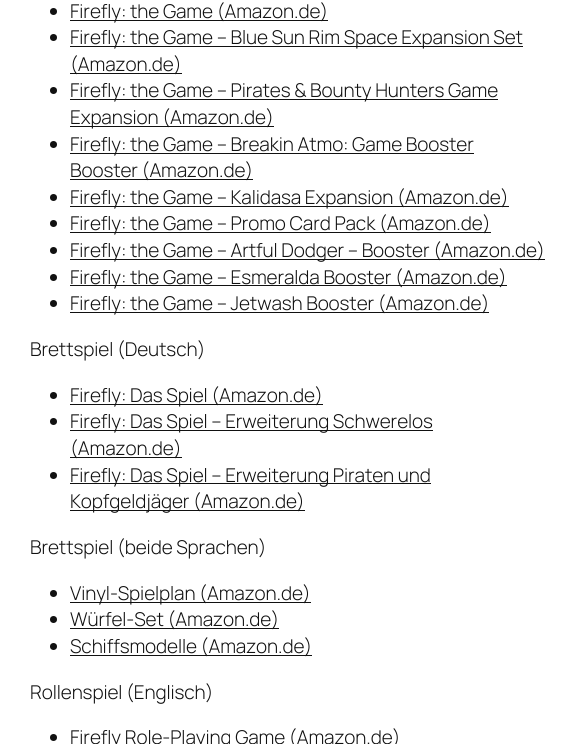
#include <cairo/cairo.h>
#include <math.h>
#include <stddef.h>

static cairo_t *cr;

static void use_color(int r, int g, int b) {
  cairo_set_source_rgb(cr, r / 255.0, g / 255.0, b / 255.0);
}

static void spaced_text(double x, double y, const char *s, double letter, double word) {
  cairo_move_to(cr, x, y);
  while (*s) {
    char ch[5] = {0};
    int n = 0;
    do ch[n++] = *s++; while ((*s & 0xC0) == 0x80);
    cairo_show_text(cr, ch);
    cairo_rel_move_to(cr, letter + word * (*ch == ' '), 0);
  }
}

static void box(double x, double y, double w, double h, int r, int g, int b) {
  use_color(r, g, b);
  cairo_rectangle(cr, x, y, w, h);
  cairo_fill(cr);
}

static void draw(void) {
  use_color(255, 255, 255);
  cairo_paint(cr);
  use_color(17, 17, 17);
  cairo_arc(cr, 53.5, 11.5, 3.5, 0, 2 * M_PI);
  cairo_fill(cr);
  box(70, 20, 258, 1, 17, 17, 17);
  cairo_arc(cr, 53.5, 37.5, 3.5, 0, 2 * M_PI);
  cairo_fill(cr);
  box(70, 46, 453, 1, 17, 17, 17);
  box(70, 73, 112, 1, 17, 17, 17);
  cairo_arc(cr, 53.5, 90.5, 3.5, 0, 2 * M_PI);
  cairo_fill(cr);
  box(70, 99, 428, 1, 17, 17, 17);
  box(70, 126, 204, 1, 17, 17, 17);
  cairo_arc(cr, 53.5, 144.5, 3.5, 0, 2 * M_PI);
  cairo_fill(cr);
  box(70, 153, 404, 1, 17, 17, 17);
  box(70, 179, 183, 1, 17, 17, 17);
  cairo_arc(cr, 53.5, 197.5, 3.5, 0, 2 * M_PI);
  cairo_fill(cr);
  box(70, 206, 439, 1, 17, 17, 17);
  cairo_arc(cr, 53.5, 223.5, 3.5, 0, 2 * M_PI);
  cairo_fill(cr);
  box(70, 232, 421, 1, 17, 17, 17);
  cairo_arc(cr, 53.5, 250.5, 3.5, 0, 2 * M_PI);
  cairo_fill(cr);
  box(70, 259, 475, 1, 17, 17, 17);
  cairo_arc(cr, 53.5, 277.5, 3.5, 0, 2 * M_PI);
  cairo_fill(cr);
  box(70, 285, 437, 1, 17, 17, 17);
  cairo_arc(cr, 53.5, 303.5, 3.5, 0, 2 * M_PI);
  cairo_fill(cr);
  box(70, 312, 419, 1, 17, 17, 17);
  cairo_arc(cr, 53.5, 395.5, 3.5, 0, 2 * M_PI);
  cairo_fill(cr);
  box(70, 404, 253, 1, 17, 17, 17);
  cairo_arc(cr, 53.5, 421.5, 3.5, 0, 2 * M_PI);
  cairo_fill(cr);
  box(70, 430, 363, 1, 17, 17, 17);
  box(70, 457, 112, 1, 17, 17, 17);
  cairo_arc(cr, 53.5, 475.5, 3.5, 0, 2 * M_PI);
  cairo_fill(cr);
  box(70, 483, 361, 1, 17, 17, 17);
  box(70, 510, 235, 1, 17, 17, 17);
  cairo_arc(cr, 53.5, 593.5, 3.5, 0, 2 * M_PI);
  cairo_fill(cr);
  box(70, 602, 241, 1, 17, 17, 17);
  cairo_arc(cr, 53.5, 619.5, 3.5, 0, 2 * M_PI);
  cairo_fill(cr);
  box(70, 628, 209, 1, 17, 17, 17);
  cairo_arc(cr, 53.5, 646.5, 3.5, 0, 2 * M_PI);
  cairo_fill(cr);
  box(70, 655, 242, 1, 17, 17, 17);
  cairo_arc(cr, 53.5, 737.5, 3.5, 0, 2 * M_PI);
  cairo_fill(cr);
  cairo_select_font_face(cr, "Manrope Light", CAIRO_FONT_SLANT_NORMAL, CAIRO_FONT_WEIGHT_NORMAL);
  cairo_set_font_size(cr, 19);
  spaced_text(70, 18, "Firefly: the Game (Amazon.de)", -0.1, 0);
  spaced_text(70, 44, "Firefly: the Game – Blue Sun Rim Space Expansion Set", -0.1, 0);
  spaced_text(70, 71, "(Amazon.de)", -0.1, 0);
  spaced_text(70, 97, "Firefly: the Game – Pirates & Bounty Hunters Game", -0.1, 0);
  spaced_text(70, 124, "Expansion (Amazon.de)", -0.1, 0);
  spaced_text(70, 151, "Firefly: the Game – Breakin Atmo: Game Booster", -0.1, 0);
  spaced_text(70, 177, "Booster (Amazon.de)", -0.1, 0);
  spaced_text(70, 204, "Firefly: the Game – Kalidasa Expansion (Amazon.de)", -0.1, 0);
  spaced_text(70, 230, "Firefly: the Game – Promo Card Pack (Amazon.de)", -0.1, 0);
  spaced_text(70, 257, "Firefly: the Game – Artful Dodger – Booster (Amazon.de)", -0.1, 0);
  spaced_text(70, 284, "Firefly: the Game – Esmeralda Booster (Amazon.de)", -0.1, 0);
  spaced_text(70, 310, "Firefly: the Game – Jetwash Booster (Amazon.de)", -0.1, 0);
  spaced_text(30, 356, "Brettspiel (Deutsch)", -0.1, 0);
  spaced_text(70, 402, "Firefly: Das Spiel (Amazon.de)", -0.1, 0);
  spaced_text(70, 428, "Firefly: Das Spiel – Erweiterung Schwerelos", -0.1, 0);
  spaced_text(70, 455, "(Amazon.de)", -0.1, 0);
  spaced_text(70, 482, "Firefly: Das Spiel – Erweiterung Piraten und", -0.1, 0);
  spaced_text(70, 508, "Kopfgeldjäger (Amazon.de)", -0.1, 0);
  spaced_text(30, 554, "Brettspiel (beide Sprachen)", -0.1, 0);
  spaced_text(70, 600, "Vinyl-Spielplan (Amazon.de)", -0.1, 0);
  spaced_text(70, 626, "Würfel-Set (Amazon.de)", -0.1, 0);
  spaced_text(70, 653, "Schiffsmodelle (Amazon.de)", -0.1, 0);
  spaced_text(30, 699, "Rollenspiel (Englisch)", -0.1, 0);
  spaced_text(70, 744, "Firefly Role-Playing Game (Amazon.de)", -0.1, 0);
}

int main(void) {
  cairo_surface_t *surface = cairo_image_surface_create(CAIRO_FORMAT_RGB24, 577, 744);
  cr = cairo_create(surface);
  cairo_font_options_t *options = cairo_font_options_create();
  cairo_font_options_set_hint_metrics(options, CAIRO_HINT_METRICS_OFF);
  cairo_font_options_set_hint_style(options, CAIRO_HINT_STYLE_NONE);
  cairo_set_font_options(cr, options);
  cairo_set_miter_limit(cr, 4);
  draw();
  cairo_surface_write_to_png(surface, "out.png");
  cairo_font_options_destroy(options);
  cairo_destroy(cr);
  cairo_surface_destroy(surface);
  return 0;
}
